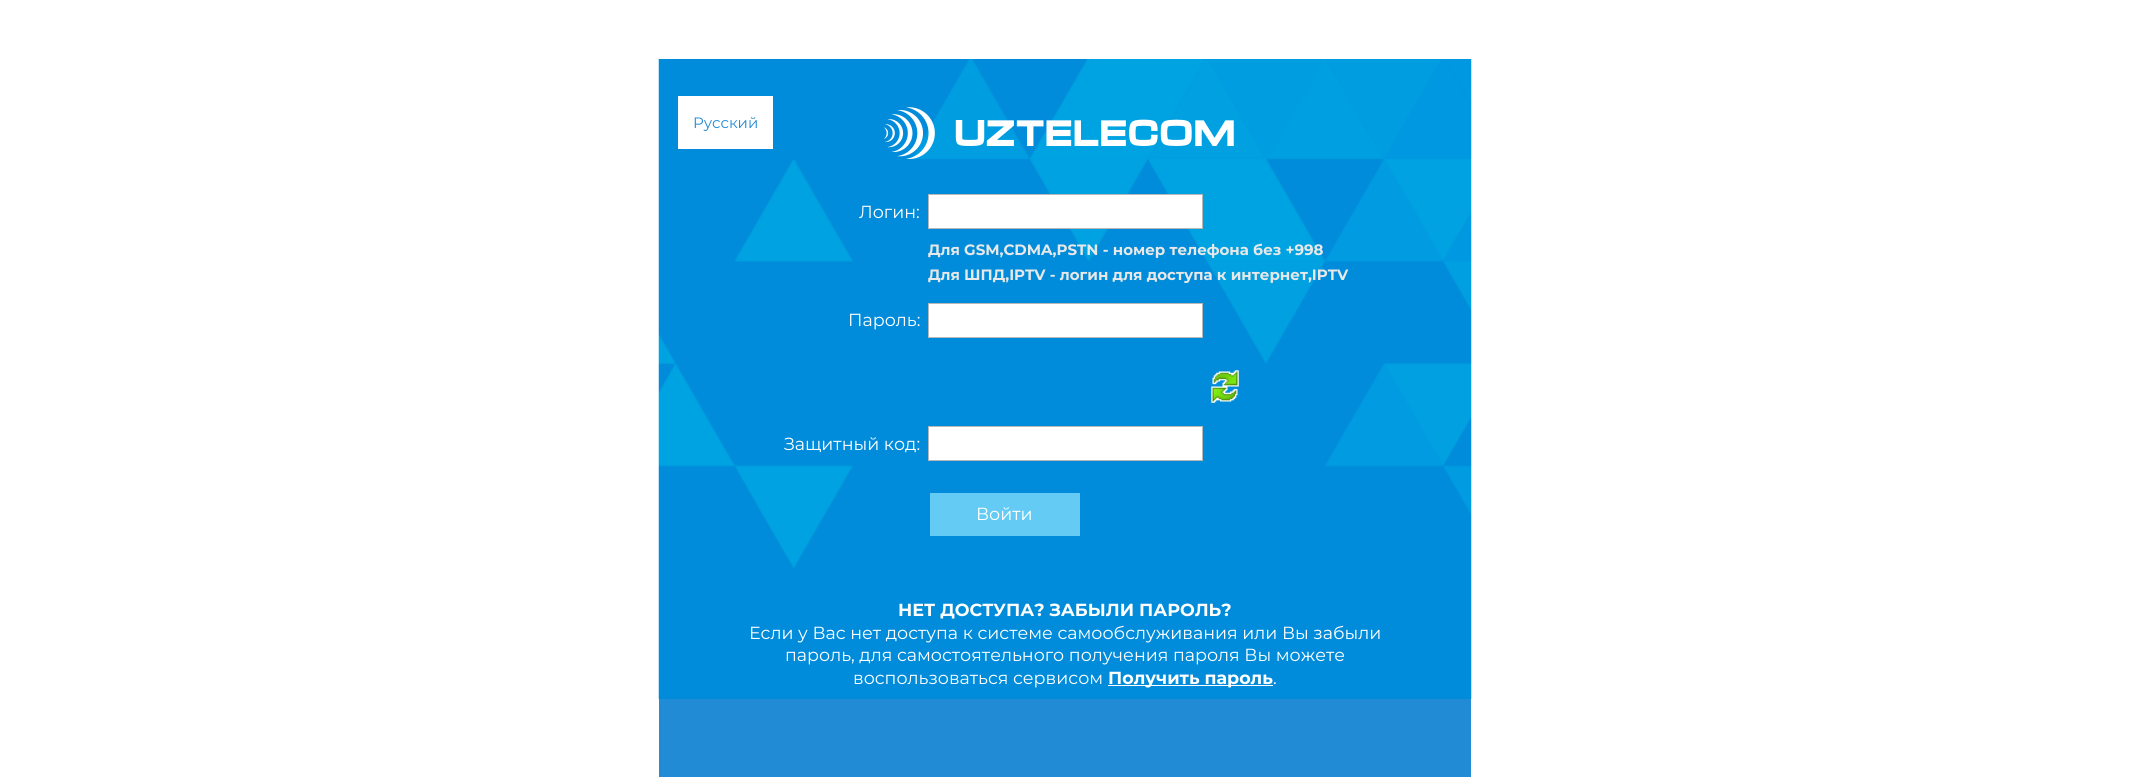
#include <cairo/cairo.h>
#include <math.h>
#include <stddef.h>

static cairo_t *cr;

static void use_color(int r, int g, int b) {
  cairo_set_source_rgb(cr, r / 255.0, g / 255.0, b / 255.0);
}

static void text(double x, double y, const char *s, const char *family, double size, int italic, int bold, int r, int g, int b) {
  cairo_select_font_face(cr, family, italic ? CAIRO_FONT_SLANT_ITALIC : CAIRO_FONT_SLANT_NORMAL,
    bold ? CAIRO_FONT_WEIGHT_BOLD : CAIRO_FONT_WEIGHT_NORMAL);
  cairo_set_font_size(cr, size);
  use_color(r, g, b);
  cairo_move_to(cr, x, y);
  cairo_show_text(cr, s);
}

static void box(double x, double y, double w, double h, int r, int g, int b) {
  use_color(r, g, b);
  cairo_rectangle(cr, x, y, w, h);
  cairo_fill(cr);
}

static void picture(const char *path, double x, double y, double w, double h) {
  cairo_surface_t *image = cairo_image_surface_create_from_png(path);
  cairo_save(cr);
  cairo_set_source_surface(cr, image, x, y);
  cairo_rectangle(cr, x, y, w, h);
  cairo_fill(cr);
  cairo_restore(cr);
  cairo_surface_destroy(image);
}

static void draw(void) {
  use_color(255, 255, 255);
  cairo_paint(cr);
  box(659, 699, 812, 78, 34, 139, 214);
  picture("img_01.png", 658, 59, 814, 640);
  box(678, 96, 95, 53, 255, 255, 255);
  picture("img_02.png", 884, 107, 350, 52);
  cairo_rectangle(cr, 928.5, 194.5, 274, 34);
  cairo_fill_preserve(cr);
  use_color(183, 183, 183);
  cairo_set_line_width(cr, 1);
  cairo_stroke(cr);
  use_color(255, 255, 255);
  cairo_rectangle(cr, 928.5, 303.5, 274, 34);
  cairo_fill_preserve(cr);
  use_color(183, 183, 183);
  cairo_stroke(cr);
  picture("img_03.png", 1211, 370, 28, 33);
  use_color(255, 255, 255);
  cairo_rectangle(cr, 928.5, 426.5, 274, 34);
  cairo_fill_preserve(cr);
  use_color(183, 183, 183);
  cairo_stroke(cr);
  box(930, 493, 150, 43, 100, 204, 244);
  box(1108, 685, 165, 1, 255, 255, 255);
  text(693, 128, "Русский", "Montserrat", 15, 0, 0, 34, 139, 214);
  text(859, 218, "Логин:", "Montserrat", 17.5, 0, 0, 255, 255, 255);
  text(928, 255, "Для GSM,CDMA,PSTN - номер телефона без +998", "Montserrat", 15, 0, 1, 232, 232, 232);
  text(928, 280, "Для ШПД,IPTV - логин для доступа к интернет,IPTV", "Montserrat", 15, 0, 1, 232, 232, 232);
  text(848, 326, "Пароль:", "Montserrat", 17.5, 0, 0, 255, 255, 255);
  text(784, 450, "Защитный код:", "Montserrat", 17.5, 0, 0, 255, 255, 255);
  text(976, 520, "Войти", "Montserrat", 17.5, 0, 0, 255, 255, 255);
  text(898, 616, "НЕТ ДОСТУПА? ЗАБЫЛИ ПАРОЛЬ?", "Montserrat", 17.5, 0, 1, 255, 255, 255);
  text(749, 639, "Если у Вас нет доступа к системе самообслуживания или Вы забыли", "Montserrat", 17.5, 0, 0, 255, 255, 255);
  text(785, 661, "пароль, для самостоятельного получения пароля Вы можете", "Montserrat", 17.5, 0, 0, 255, 255, 255);
  text(853, 684, "воспользоваться сервисом", "Montserrat", 17.5, 0, 0, 255, 255, 255);
  text(1108, 684, "Получить пароль", "Montserrat", 17.5, 0, 1, 255, 255, 255);
  text(1273, 684, ".", "Montserrat", 17.5, 0, 0, 255, 255, 255);
}

int main(void) {
  cairo_surface_t *surface = cairo_image_surface_create(CAIRO_FORMAT_RGB24, 2129, 777);
  cr = cairo_create(surface);
  cairo_font_options_t *options = cairo_font_options_create();
  cairo_font_options_set_hint_metrics(options, CAIRO_HINT_METRICS_OFF);
  cairo_font_options_set_hint_style(options, CAIRO_HINT_STYLE_NONE);
  cairo_set_font_options(cr, options);
  cairo_set_miter_limit(cr, 4);
  draw();
  cairo_surface_write_to_png(surface, "out.png");
  cairo_font_options_destroy(options);
  cairo_destroy(cr);
  cairo_surface_destroy(surface);
  return 0;
}
